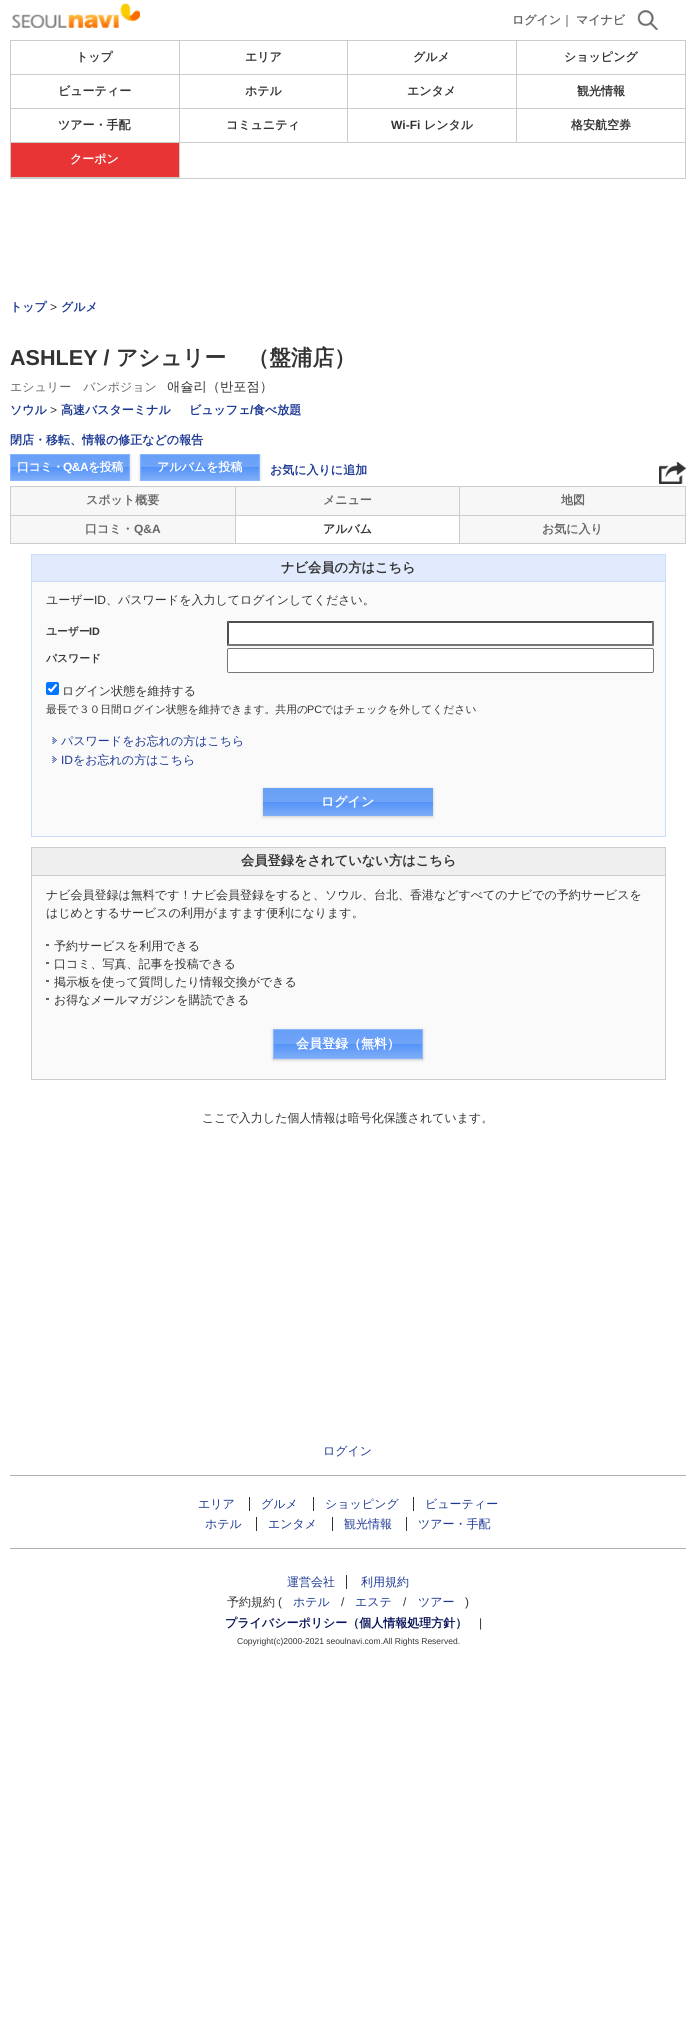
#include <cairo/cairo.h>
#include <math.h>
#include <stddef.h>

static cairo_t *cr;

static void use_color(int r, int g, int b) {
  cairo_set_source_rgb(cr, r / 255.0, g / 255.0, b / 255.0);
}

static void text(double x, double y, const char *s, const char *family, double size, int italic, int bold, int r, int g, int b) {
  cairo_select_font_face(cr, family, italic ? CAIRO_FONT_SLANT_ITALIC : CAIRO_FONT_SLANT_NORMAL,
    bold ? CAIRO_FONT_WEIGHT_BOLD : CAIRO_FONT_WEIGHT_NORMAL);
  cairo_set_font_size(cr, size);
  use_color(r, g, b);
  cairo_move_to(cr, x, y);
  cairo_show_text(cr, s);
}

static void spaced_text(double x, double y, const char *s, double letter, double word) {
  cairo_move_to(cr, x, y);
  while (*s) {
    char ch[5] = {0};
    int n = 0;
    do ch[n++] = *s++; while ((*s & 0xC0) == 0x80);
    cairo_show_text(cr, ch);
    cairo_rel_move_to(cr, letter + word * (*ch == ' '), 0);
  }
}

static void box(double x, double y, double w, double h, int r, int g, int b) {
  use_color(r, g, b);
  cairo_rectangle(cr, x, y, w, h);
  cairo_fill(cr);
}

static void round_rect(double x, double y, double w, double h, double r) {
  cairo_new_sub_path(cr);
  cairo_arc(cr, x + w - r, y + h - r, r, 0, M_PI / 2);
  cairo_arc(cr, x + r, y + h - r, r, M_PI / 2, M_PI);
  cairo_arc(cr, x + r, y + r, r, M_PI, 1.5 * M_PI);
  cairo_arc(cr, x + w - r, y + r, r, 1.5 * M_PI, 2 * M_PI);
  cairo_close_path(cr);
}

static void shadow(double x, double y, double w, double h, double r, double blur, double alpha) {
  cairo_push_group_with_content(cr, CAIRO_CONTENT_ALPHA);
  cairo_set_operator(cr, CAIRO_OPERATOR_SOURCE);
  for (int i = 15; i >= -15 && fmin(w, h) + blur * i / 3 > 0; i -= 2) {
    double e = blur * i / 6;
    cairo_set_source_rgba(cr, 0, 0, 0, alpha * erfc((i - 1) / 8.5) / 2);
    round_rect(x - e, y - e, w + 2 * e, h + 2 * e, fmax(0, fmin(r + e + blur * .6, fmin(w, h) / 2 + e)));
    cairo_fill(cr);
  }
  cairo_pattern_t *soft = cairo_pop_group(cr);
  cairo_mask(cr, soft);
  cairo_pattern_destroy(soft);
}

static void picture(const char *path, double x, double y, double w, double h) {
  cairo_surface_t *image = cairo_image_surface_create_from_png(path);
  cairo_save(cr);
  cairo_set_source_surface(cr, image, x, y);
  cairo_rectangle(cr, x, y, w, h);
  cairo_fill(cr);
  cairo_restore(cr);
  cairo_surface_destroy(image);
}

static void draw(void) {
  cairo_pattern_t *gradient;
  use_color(255, 255, 255);
  cairo_paint(cr);
  picture("img_01.png", 12, 3, 128, 25);
  picture("img_02.png", 637, 10, 21, 20);
  box(10, 40, 676, 1, 204, 204, 204);
  box(10, 178, 676, 1, 204, 204, 204);
  box(685, 41, 1, 137, 204, 204, 204);
  box(10, 41, 1, 137, 204, 204, 204);
  box(179, 41, 1, 137, 204, 204, 204);
  box(11, 74, 169, 1, 204, 204, 204);
  box(347, 41, 1, 102, 204, 204, 204);
  box(180, 74, 168, 1, 204, 204, 204);
  box(516, 41, 1, 102, 204, 204, 204);
  box(348, 74, 337, 1, 204, 204, 204);
  box(11, 108, 674, 1, 204, 204, 204);
  box(11, 142, 674, 1, 204, 204, 204);
  box(11, 143, 168, 34, 232, 52, 52);
  box(11, 177, 169, 1, 204, 204, 204);
  use_color(247, 247, 247);
  cairo_rectangle(cr, 10.5, 486.5, 675, 57);
  cairo_fill_preserve(cr);
  use_color(204, 204, 204);
  cairo_set_line_width(cr, 1);
  cairo_stroke(cr);
  cairo_save(cr);
  cairo_rectangle(cr, 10, 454, 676, 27);
  cairo_clip(cr);
  use_color(0, 0, 0);
  shadow(10, 455, 120, 27, 0, 1.5, 0.2);
  cairo_restore(cr);
  gradient = cairo_pattern_create_linear(11, 455, 11, 480);
  cairo_pattern_add_color_stop_rgba(gradient, 0, 0.404, 0.624, 0.969, 1);
  cairo_pattern_add_color_stop_rgba(gradient, 0.5, 0.439, 0.643, 0.969, 1);
  cairo_pattern_add_color_stop_rgba(gradient, 0.5, 0.325, 0.576, 0.976, 1);
  cairo_pattern_add_color_stop_rgba(gradient, 1, 0.498, 0.678, 0.969, 1);
  cairo_set_source(cr, gradient);
  cairo_pattern_destroy(gradient);
  cairo_rectangle(cr, 11, 455, 118, 25);
  cairo_fill(cr);
  cairo_rectangle(cr, 10.5, 454.5, 119, 26);
  use_color(137, 183, 255);
  cairo_stroke(cr);
  cairo_save(cr);
  cairo_rectangle(cr, 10, 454, 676, 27);
  cairo_clip(cr);
  use_color(0, 0, 0);
  shadow(140, 455, 120, 27, 0, 1.5, 0.2);
  cairo_restore(cr);
  gradient = cairo_pattern_create_linear(141, 455, 141, 480);
  cairo_pattern_add_color_stop_rgba(gradient, 0, 0.404, 0.624, 0.969, 1);
  cairo_pattern_add_color_stop_rgba(gradient, 0.5, 0.439, 0.643, 0.969, 1);
  cairo_pattern_add_color_stop_rgba(gradient, 0.5, 0.325, 0.576, 0.976, 1);
  cairo_pattern_add_color_stop_rgba(gradient, 1, 0.498, 0.678, 0.969, 1);
  cairo_set_source(cr, gradient);
  cairo_pattern_destroy(gradient);
  cairo_rectangle(cr, 141, 455, 118, 25);
  cairo_fill(cr);
  cairo_rectangle(cr, 140.5, 454.5, 119, 26);
  use_color(137, 183, 255);
  cairo_stroke(cr);
  picture("img_03.png", 659, 462, 27, 22);
  box(235, 487, 1, 56, 204, 204, 204);
  box(11, 515, 225, 1, 204, 204, 204);
  box(459, 487, 1, 56, 204, 204, 204);
  box(236, 515, 449, 1, 204, 204, 204);
  box(236, 516, 223, 27, 255, 255, 255);
  box(32, 555, 633, 26, 226, 235, 254);
  box(31, 554, 635, 1, 202, 220, 252);
  box(665, 554, 1, 27, 202, 220, 252);
  box(31, 554, 1, 27, 202, 220, 252);
  use_color(250, 250, 250);
  cairo_rectangle(cr, 31.5, 581.5, 634, 255);
  cairo_fill_preserve(cr);
  use_color(202, 220, 252);
  cairo_stroke(cr);
  box(227, 621, 427, 25, 255, 255, 255);
  use_color(79, 79, 79);
  cairo_new_path(cr);
  cairo_move_to(cr, 227, 621);
  cairo_line_to(cr, 654, 621);
  cairo_line_to(cr, 652, 623);
  cairo_line_to(cr, 229, 623);
  cairo_close_path(cr);
  cairo_fill(cr);
  use_color(118, 118, 118);
  cairo_new_path(cr);
  cairo_move_to(cr, 654, 621);
  cairo_line_to(cr, 654, 646);
  cairo_line_to(cr, 652, 644);
  cairo_line_to(cr, 652, 623);
  cairo_close_path(cr);
  cairo_fill(cr);
  cairo_new_path(cr);
  cairo_move_to(cr, 654, 646);
  cairo_line_to(cr, 227, 646);
  cairo_line_to(cr, 229, 644);
  cairo_line_to(cr, 652, 644);
  cairo_close_path(cr);
  cairo_fill(cr);
  use_color(79, 79, 79);
  cairo_new_path(cr);
  cairo_move_to(cr, 227, 646);
  cairo_line_to(cr, 227, 621);
  cairo_line_to(cr, 229, 623);
  cairo_line_to(cr, 229, 644);
  cairo_close_path(cr);
  cairo_fill(cr);
  use_color(255, 255, 255);
  round_rect(227.5, 648.5, 426, 24, 1.5);
  cairo_fill_preserve(cr);
  use_color(118, 118, 118);
  cairo_stroke(cr);
  use_color(0, 117, 255);
  round_rect(46, 682, 13, 13, 2);
  cairo_fill(cr);
  cairo_new_path(cr);
  cairo_move_to(cr, 48.5, 688.5);
  cairo_line_to(cr, 51, 691);
  cairo_line_to(cr, 56.5, 684.5);
  use_color(255, 255, 255);
  cairo_set_line_width(cr, 2.1);
  cairo_stroke(cr);
  picture("img_04.png", 52, 737, 5, 7);
  picture("img_04.png", 52, 756, 5, 7);
  use_color(0, 0, 0);
  shadow(263, 789, 170, 28, 0, 1.5, 0.2);
  gradient = cairo_pattern_create_linear(263, 788, 263, 816);
  cairo_pattern_add_color_stop_rgba(gradient, 0, 0.404, 0.624, 0.969, 1);
  cairo_pattern_add_color_stop_rgba(gradient, 0.5, 0.439, 0.643, 0.969, 1);
  cairo_pattern_add_color_stop_rgba(gradient, 0.5, 0.325, 0.576, 0.976, 1);
  cairo_pattern_add_color_stop_rgba(gradient, 1, 0.498, 0.678, 0.969, 1);
  cairo_set_source(cr, gradient);
  cairo_pattern_destroy(gradient);
  cairo_rectangle(cr, 263, 788, 170, 28);
  cairo_fill(cr);
  box(32, 848, 633, 27, 239, 239, 239);
  box(31, 847, 635, 1, 205, 205, 205);
  box(665, 847, 1, 28, 205, 205, 205);
  box(31, 847, 1, 28, 205, 205, 205);
  use_color(250, 250, 250);
  cairo_rectangle(cr, 31.5, 875.5, 634, 204);
  cairo_fill_preserve(cr);
  use_color(205, 205, 205);
  cairo_set_line_width(cr, 1);
  cairo_stroke(cr);
  box(46, 944, 3, 2, 102, 102, 102);
  box(46, 962, 3, 2, 102, 102, 102);
  box(46, 980, 3, 2, 102, 102, 102);
  box(46, 998, 3, 2, 102, 102, 102);
  use_color(0, 0, 0);
  shadow(273, 1030, 150, 30, 0, 1.5, 0.2);
  gradient = cairo_pattern_create_linear(274, 1030, 274, 1058);
  cairo_pattern_add_color_stop_rgba(gradient, 0, 0.404, 0.624, 0.969, 1);
  cairo_pattern_add_color_stop_rgba(gradient, 0.5, 0.439, 0.643, 0.969, 1);
  cairo_pattern_add_color_stop_rgba(gradient, 0.5, 0.325, 0.576, 0.976, 1);
  cairo_pattern_add_color_stop_rgba(gradient, 1, 0.498, 0.678, 0.969, 1);
  cairo_set_source(cr, gradient);
  cairo_pattern_destroy(gradient);
  cairo_rectangle(cr, 274, 1030, 148, 28);
  cairo_fill(cr);
  cairo_rectangle(cr, 273.5, 1029.5, 149, 29);
  use_color(137, 183, 255);
  cairo_stroke(cr);
  box(10, 1475, 676, 1, 173, 176, 178);
  box(249, 1497, 1, 14, 51, 51, 51);
  box(313, 1497, 1, 14, 51, 51, 51);
  box(413, 1497, 1, 14, 51, 51, 51);
  box(10, 1548, 676, 1, 173, 176, 178);
  box(256, 1517, 1, 14, 51, 51, 51);
  box(332, 1517, 1, 14, 51, 51, 51);
  box(406, 1517, 1, 14, 51, 51, 51);
  box(346, 1575, 1, 14, 51, 51, 51);
  text(512, 24, "ログイン", "WenQuanYi Zen Hei", 12, 0, 1, 102, 102, 102);
  text(561, 24, "｜", "WenQuanYi Zen Hei Medium", 12, 0, 0, 51, 51, 51);
  text(576, 24, "マイナビ", "WenQuanYi Zen Hei", 12, 0, 1, 102, 102, 102);
  text(76, 61, "トップ", "WenQuanYi Zen Hei", 12, 0, 1, 51, 51, 51);
  text(245, 61, "エリア", "WenQuanYi Zen Hei", 12, 0, 1, 51, 51, 51);
  text(413, 61, "グルメ", "WenQuanYi Zen Hei", 12, 0, 1, 51, 51, 51);
  text(564, 61, "ショッピング", "WenQuanYi Zen Hei", 12, 0, 1, 51, 51, 51);
  text(58, 95, "ビューティー", "WenQuanYi Zen Hei", 12, 0, 1, 51, 51, 51);
  text(245, 95, "ホテル", "WenQuanYi Zen Hei", 12, 0, 1, 51, 51, 51);
  text(407, 95, "エンタメ", "WenQuanYi Zen Hei", 12, 0, 1, 51, 51, 51);
  text(577, 95, "観光情報", "WenQuanYi Zen Hei", 12, 0, 1, 51, 51, 51);
  text(58, 129, "ツアー・手配", "WenQuanYi Zen Hei", 12, 0, 1, 51, 51, 51);
  text(226, 129, "コミュニティ", "WenQuanYi Zen Hei", 12, 0, 1, 51, 51, 51);
  text(391, 129, "Wi-Fi", "Liberation Sans", 12, 0, 1, 51, 51, 51);
  text(424, 129, "レンタル", "WenQuanYi Zen Hei", 12, 0, 1, 51, 51, 51);
  text(571, 129, "格安航空券", "WenQuanYi Zen Hei", 12, 0, 1, 51, 51, 51);
  text(70, 163, "クーポン", "WenQuanYi Zen Hei", 12, 0, 1, 255, 255, 255);
  text(10, 311, "トップ", "WenQuanYi Zen Hei", 12, 0, 1, 29, 57, 148);
  text(50, 311, ">", "Liberation Sans", 12, 0, 0, 51, 51, 51);
  text(61, 311, "グルメ", "WenQuanYi Zen Hei", 12, 0, 1, 29, 57, 148);
  text(10, 365, "ASHLEY /", "Liberation Sans", 21.6, 0, 1, 51, 51, 51);
  text(116, 365, "アシュリー　（盤浦店）", "WenQuanYi Zen Hei", 21.6, 0, 1, 51, 51, 51);
  text(10, 391, "エシュリー　バンポジョン", "WenQuanYi Zen Hei Medium", 12, 0, 0, 102, 102, 102);
  text(167, 391, "애슐리（반포점）", "WenQuanYi Zen Hei Medium", 13.25, 0, 0, 51, 51, 51);
  text(10, 414, "ソウル", "WenQuanYi Zen Hei", 12, 0, 1, 29, 57, 148);
  text(50, 414, ">", "Liberation Sans", 12, 0, 0, 51, 51, 51);
  text(61, 414, "高速バスターミナル", "WenQuanYi Zen Hei", 12, 0, 1, 29, 57, 148);
  text(189, 414, "ビュッフェ", "WenQuanYi Zen Hei", 12, 0, 1, 29, 57, 148);
  text(250, 414, "/", "Liberation Sans", 12, 0, 1, 29, 57, 148);
  text(253, 414, "食べ放題", "WenQuanYi Zen Hei", 12, 0, 1, 29, 57, 148);
  text(10, 444, "閉店・移転、情報の修正などの報告", "WenQuanYi Zen Hei", 12, 0, 1, 29, 57, 148);
  use_color(255, 255, 255);
  spaced_text(17, 471, "口コミ・", -0.5, 0);
  cairo_select_font_face(cr, "Liberation Sans", CAIRO_FONT_SLANT_NORMAL, CAIRO_FONT_WEIGHT_BOLD);
  spaced_text(63, 471, "Q&A", -0.5, 0);
  cairo_select_font_face(cr, "WenQuanYi Zen Hei", CAIRO_FONT_SLANT_NORMAL, CAIRO_FONT_WEIGHT_BOLD);
  spaced_text(88, 471, "を投稿", -0.5, 0);
  text(157, 471, "アルバムを投稿", "WenQuanYi Zen Hei", 12, 0, 1, 255, 255, 255);
  text(270, 474, "お気に入りに追加", "WenQuanYi Zen Hei", 12, 0, 1, 29, 57, 148);
  text(86, 504, "スポット概要", "WenQuanYi Zen Hei", 12, 0, 1, 102, 102, 102);
  text(323, 504, "メニュー", "WenQuanYi Zen Hei", 12, 0, 1, 102, 102, 102);
  text(561, 504, "地図", "WenQuanYi Zen Hei", 12, 0, 1, 102, 102, 102);
  text(85, 533, "口コミ・", "WenQuanYi Zen Hei", 12, 0, 1, 102, 102, 102);
  text(134, 533, "Q&A", "Liberation Sans", 12, 0, 1, 102, 102, 102);
  text(323, 533, "アルバム", "WenQuanYi Zen Hei", 12, 0, 1, 51, 51, 51);
  text(542, 533, "お気に入り", "WenQuanYi Zen Hei", 12, 0, 1, 102, 102, 102);
  text(281, 572, "ナビ会員の方はこちら", "WenQuanYi Zen Hei", 13.25, 0, 1, 51, 51, 51);
  text(46, 604, "ユーザー", "WenQuanYi Zen Hei Medium", 12, 0, 0, 51, 51, 51);
  text(94, 604, "ID", "Liberation Sans", 12, 0, 0, 51, 51, 51);
  text(106, 604, "、パスワードを入力してログインしてください。", "WenQuanYi Zen Hei Medium", 12, 0, 0, 51, 51, 51);
  text(46, 635, "ユーザー", "WenQuanYi Zen Hei", 10.8, 0, 1, 51, 51, 51);
  text(89, 635, "ID", "Liberation Sans", 10.8, 0, 1, 51, 51, 51);
  text(46, 662, "パスワード", "WenQuanYi Zen Hei", 10.8, 0, 1, 51, 51, 51);
  text(62, 695, "ログイン状態を維持する", "WenQuanYi Zen Hei Medium", 12, 0, 0, 51, 51, 51);
  text(46, 713, "最長で３０日間ログイン状態を維持できます。共用の", "WenQuanYi Zen Hei Medium", 10.8, 0, 0, 51, 51, 51);
  text(307, 713, "PC", "Liberation Sans", 10.8, 0, 0, 51, 51, 51);
  text(322, 713, "ではチェックを外してください", "WenQuanYi Zen Hei Medium", 10.8, 0, 0, 51, 51, 51);
  text(61, 745, "パスワードをお忘れの方はこちら", "WenQuanYi Zen Hei Medium", 12, 0, 0, 29, 57, 148);
  text(61, 764, "ID", "Liberation Sans", 12, 0, 0, 29, 57, 148);
  text(73, 764, "をお忘れの方はこちら", "WenQuanYi Zen Hei Medium", 12, 0, 0, 29, 57, 148);
  text(321, 806, "ログイン", "WenQuanYi Zen Hei", 13, 0, 1, 255, 255, 255);
  text(241, 865, "会員登録をされていない方はこちら", "WenQuanYi Zen Hei", 13.25, 0, 1, 51, 51, 51);
  text(46, 899, "ナビ会員登録は無料です！ナビ会員登録をすると、ソウル、台北、香港などすべてのナビでの予約サービスを", "WenQuanYi Zen Hei Medium", 12, 0, 0, 51, 51, 51);
  text(46, 917, "はじめとするサービスの利用がますます便利になります。", "WenQuanYi Zen Hei Medium", 12, 0, 0, 51, 51, 51);
  text(54, 950, "予約サービスを利用できる", "WenQuanYi Zen Hei Medium", 12, 0, 0, 51, 51, 51);
  text(54, 968, "口コミ、写真、記事を投稿できる", "WenQuanYi Zen Hei Medium", 12, 0, 0, 51, 51, 51);
  text(54, 986, "掲示板を使って質問したり情報交換ができる", "WenQuanYi Zen Hei Medium", 12, 0, 0, 51, 51, 51);
  text(54, 1004, "お得なメールマガジンを購読できる", "WenQuanYi Zen Hei Medium", 12, 0, 0, 51, 51, 51);
  text(296, 1048, "会員登録（無料）", "WenQuanYi Zen Hei", 13, 0, 1, 255, 255, 255);
  text(202, 1122, "ここで入力した個人情報は暗号化保護されています。", "WenQuanYi Zen Hei Medium", 12, 0, 0, 51, 51, 51);
  text(323, 1455, "ログイン", "WenQuanYi Zen Hei Medium", 12, 0, 0, 29, 57, 148);
  text(198, 1508, "エリア", "WenQuanYi Zen Hei Medium", 12, 0, 0, 29, 57, 148);
  text(261, 1508, "グルメ", "WenQuanYi Zen Hei Medium", 12, 0, 0, 29, 57, 148);
  text(325, 1508, "ショッピング", "WenQuanYi Zen Hei Medium", 12, 0, 0, 29, 57, 148);
  text(425, 1508, "ビューティー", "WenQuanYi Zen Hei Medium", 12, 0, 0, 29, 57, 148);
  text(205, 1528, "ホテル", "WenQuanYi Zen Hei Medium", 12, 0, 0, 29, 57, 148);
  text(268, 1528, "エンタメ", "WenQuanYi Zen Hei Medium", 12, 0, 0, 29, 57, 148);
  text(344, 1528, "観光情報", "WenQuanYi Zen Hei Medium", 12, 0, 0, 29, 57, 148);
  text(418, 1528, "ツアー・手配", "WenQuanYi Zen Hei Medium", 12, 0, 0, 29, 57, 148);
  text(287, 1586, "運営会社", "WenQuanYi Zen Hei Medium", 12, 0, 0, 29, 57, 148);
  text(361, 1586, "利用規約", "WenQuanYi Zen Hei Medium", 12, 0, 0, 29, 57, 148);
  text(227, 1606, "予約規約", "WenQuanYi Zen Hei Medium", 12, 0, 0, 51, 51, 51);
  text(278, 1606, "(", "Liberation Sans", 12, 0, 0, 51, 51, 51);
  text(293, 1606, "ホテル", "WenQuanYi Zen Hei Medium", 12, 0, 0, 29, 57, 148);
  text(341, 1606, "/", "Liberation Sans", 12, 0, 0, 51, 51, 51);
  text(355, 1606, "エステ", "WenQuanYi Zen Hei Medium", 12, 0, 0, 29, 57, 148);
  text(403, 1606, "/", "Liberation Sans", 12, 0, 0, 51, 51, 51);
  text(418, 1606, "ツアー", "WenQuanYi Zen Hei Medium", 12, 0, 0, 29, 57, 148);
  text(465, 1606, ")", "Liberation Sans", 12, 0, 0, 51, 51, 51);
  text(225, 1627, "プライバシーポリシー（個人情報処理方針）", "WenQuanYi Zen Hei", 12, 0, 1, 9, 19, 91);
  text(479, 1627, "|", "Liberation Sans", 12, 0, 0, 51, 51, 51);
  text(237, 1644, "Copyright(c)2000-2021 seoulnavi.com.All Rights Reserved.", "Liberation Sans", 8.5, 0, 0, 51, 51, 51);
}

int main(void) {
  cairo_surface_t *surface = cairo_image_surface_create(CAIRO_FORMAT_RGB24, 696, 2036);
  cr = cairo_create(surface);
  cairo_font_options_t *options = cairo_font_options_create();
  cairo_font_options_set_hint_metrics(options, CAIRO_HINT_METRICS_OFF);
  cairo_font_options_set_hint_style(options, CAIRO_HINT_STYLE_NONE);
  cairo_set_font_options(cr, options);
  cairo_set_miter_limit(cr, 4);
  draw();
  cairo_surface_write_to_png(surface, "out.png");
  cairo_font_options_destroy(options);
  cairo_destroy(cr);
  cairo_surface_destroy(surface);
  return 0;
}
